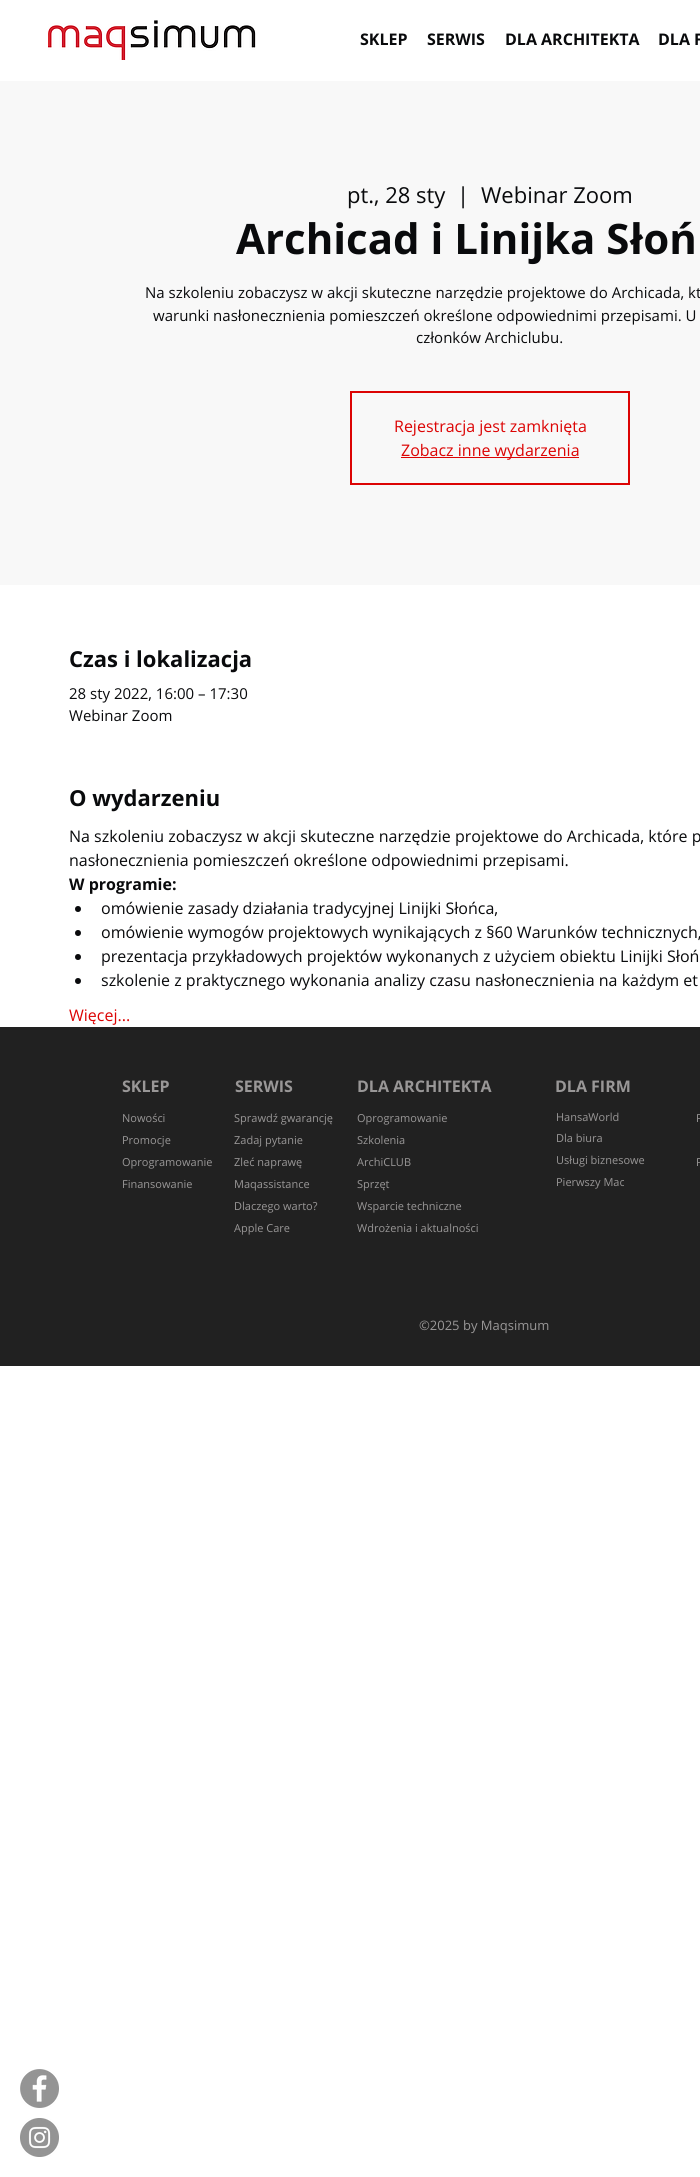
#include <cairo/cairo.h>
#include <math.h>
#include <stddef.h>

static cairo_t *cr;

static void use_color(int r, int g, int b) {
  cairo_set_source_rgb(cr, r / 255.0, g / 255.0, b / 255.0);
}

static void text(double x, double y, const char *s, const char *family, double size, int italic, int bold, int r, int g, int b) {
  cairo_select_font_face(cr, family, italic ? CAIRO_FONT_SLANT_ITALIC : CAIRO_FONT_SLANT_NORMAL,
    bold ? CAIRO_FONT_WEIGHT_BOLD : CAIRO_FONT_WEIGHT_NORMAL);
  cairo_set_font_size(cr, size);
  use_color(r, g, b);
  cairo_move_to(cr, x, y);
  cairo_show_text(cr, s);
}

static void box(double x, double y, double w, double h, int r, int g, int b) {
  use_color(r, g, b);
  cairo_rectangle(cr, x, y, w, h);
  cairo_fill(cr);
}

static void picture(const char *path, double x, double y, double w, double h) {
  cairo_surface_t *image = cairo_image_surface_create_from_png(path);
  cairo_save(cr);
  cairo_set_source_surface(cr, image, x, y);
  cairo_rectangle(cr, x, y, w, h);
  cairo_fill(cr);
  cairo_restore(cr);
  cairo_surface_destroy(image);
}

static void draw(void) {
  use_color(255, 255, 255);
  cairo_paint(cr);
  picture("img_01.png", 48, 20, 208, 40);
  box(0, 81, 700, 504, 248, 248, 248);
  cairo_rectangle(cr, 351, 392, 278, 92);
  use_color(220, 4, 4);
  cairo_stroke(cr);
  box(401, 457, 178, 1, 220, 4, 4);
  use_color(9, 10, 12);
  cairo_arc(cr, 78, 909, 3, 0, 2 * M_PI);
  cairo_fill(cr);
  cairo_arc(cr, 78, 933, 3, 0, 2 * M_PI);
  cairo_fill(cr);
  cairo_arc(cr, 78, 957, 3, 0, 2 * M_PI);
  cairo_fill(cr);
  cairo_arc(cr, 78, 981, 3, 0, 2 * M_PI);
  cairo_fill(cr);
  box(0, 1027, 700, 339, 33, 33, 33);
  picture("img_02.png", 20, 2069, 39, 39);
  picture("img_03.png", 20, 2118, 39, 39);
  text(360, 45, "SKLEP", "Open Sans", 16, 0, 1, 9, 10, 12);
  text(427, 45, "SERWIS", "Open Sans", 16, 0, 1, 9, 10, 12);
  text(505, 45, "DLA ARCHITEKTA", "Open Sans", 16, 0, 1, 9, 10, 12);
  text(658, 45, "DLA F", "Open Sans", 16, 0, 1, 9, 10, 12);
  text(347, 203, "pt., 28 sty", "Open Sans", 22, 0, 0, 9, 10, 12);
  text(457, 203, "|", "Open Sans", 22, 0, 0, 9, 10, 12);
  text(481, 203, "Webinar Zoom", "Open Sans", 22, 0, 0, 9, 10, 12);
  text(236, 254, "Archicad i Linijka Słoń", "Open Sans", 42, 0, 1, 9, 10, 12);
  text(145, 298, "Na szkoleniu zobaczysz w akcji skuteczne narzędzie projektowe do Archicada, kt", "Open Sans", 15, 0, 0, 9, 10, 12);
  text(153, 321, "warunki nasłonecznienia pomieszczeń określone odpowiednimi przepisami. U", "Open Sans", 15, 0, 0, 9, 10, 12);
  text(416, 343, "członków Archiclubu.", "Open Sans", 15, 0, 0, 9, 10, 12);
  text(394, 432, "Rejestracja jest zamknięta", "Open Sans", 16, 0, 0, 220, 4, 4);
  text(401, 456, "Zobacz inne wydarzenia", "Open Sans", 16, 0, 0, 220, 4, 4);
  text(69, 667, "Czas i lokalizacja", "Open Sans", 22, 0, 1, 9, 10, 12);
  text(69, 699, "28 sty 2022, 16:00 – 17:30", "Open Sans", 15, 0, 0, 9, 10, 12);
  text(69, 721, "Webinar Zoom", "Open Sans", 15, 0, 0, 9, 10, 12);
  text(69, 806, "O wydarzeniu", "Open Sans", 22, 0, 1, 9, 10, 12);
  text(69, 842, "Na szkoleniu zobaczysz w akcji skuteczne narzędzie projektowe do Archicada, które p", "Open Sans", 16, 0, 0, 9, 10, 12);
  text(69, 866, "nasłonecznienia pomieszczeń określone odpowiednimi przepisami.", "Open Sans", 16, 0, 0, 9, 10, 12);
  text(69, 890, "W programie:", "Open Sans", 16, 0, 1, 9, 10, 12);
  text(101, 914, "omówienie zasady działania tradycyjnej Linijki Słońca,", "Open Sans", 16, 0, 0, 9, 10, 12);
  text(101, 938, "omówienie wymogów projektowych wynikających z §60 Warunków technicznych,", "Open Sans", 16, 0, 0, 9, 10, 12);
  text(101, 962, "prezentacja przykładowych projektów wykonanych z użyciem obiektu Linijki Słoń", "Open Sans", 16, 0, 0, 9, 10, 12);
  text(101, 986, "szkolenie z praktycznego wykonania analizy czasu nasłonecznienia na każdym et", "Open Sans", 16, 0, 0, 9, 10, 12);
  text(69, 1021, "Więcej...", "Open Sans", 16, 0, 0, 220, 4, 4);
  text(122, 1092, "SKLEP", "Open Sans", 16, 0, 1, 153, 151, 151);
  text(235, 1092, "SERWIS", "Open Sans", 16, 0, 1, 153, 151, 151);
  text(357, 1092, "DLA ARCHITEKTA", "Open Sans", 16, 0, 1, 153, 151, 151);
  text(555, 1092, "DLA FIRM", "Open Sans", 16, 0, 1, 153, 151, 151);
  text(122, 1122, "Nowości", "Open Sans", 11, 0, 0, 153, 151, 151);
  text(122, 1144, "Promocje", "Open Sans", 11, 0, 0, 153, 151, 151);
  text(122, 1166, "Oprogramowanie", "Open Sans", 11, 0, 0, 153, 151, 151);
  text(122, 1188, "Finansowanie", "Open Sans", 11, 0, 0, 153, 151, 151);
  text(234, 1122, "Sprawdź gwarancję", "Open Sans", 11, 0, 0, 153, 151, 151);
  text(234, 1144, "Zadaj pytanie", "Open Sans", 11, 0, 0, 153, 151, 151);
  text(234, 1166, "Zleć naprawę", "Open Sans", 11, 0, 0, 153, 151, 151);
  text(234, 1188, "Maqassistance", "Open Sans", 11, 0, 0, 153, 151, 151);
  text(234, 1210, "Dlaczego warto?", "Open Sans", 11, 0, 0, 153, 151, 151);
  text(234, 1232, "Apple Care", "Open Sans", 11, 0, 0, 153, 151, 151);
  text(357, 1122, "Oprogramowanie", "Open Sans", 11, 0, 0, 153, 151, 151);
  text(357, 1144, "Szkolenia", "Open Sans", 11, 0, 0, 153, 151, 151);
  text(357, 1166, "ArchiCLUB", "Open Sans", 11, 0, 0, 153, 151, 151);
  text(357, 1188, "Sprzęt", "Open Sans", 11, 0, 0, 153, 151, 151);
  text(357, 1210, "Wsparcie techniczne", "Open Sans", 11, 0, 0, 153, 151, 151);
  text(357, 1232, "Wdrożenia i aktualności", "Open Sans", 11, 0, 0, 153, 151, 151);
  text(556, 1121, "HansaWorld", "Open Sans", 11, 0, 0, 153, 151, 151);
  text(556, 1142, "Dla biura", "Open Sans", 11, 0, 0, 153, 151, 151);
  text(556, 1164, "Usługi biznesowe", "Open Sans", 11, 0, 0, 153, 151, 151);
  text(556, 1186, "Pierwszy Mac", "Open Sans", 11, 0, 0, 153, 151, 151);
  text(696, 1122, "P", "Open Sans", 11, 0, 0, 153, 151, 151);
  text(696, 1166, "P", "Open Sans", 11, 0, 0, 153, 151, 151);
  text(419, 1330, "©2025 by Maqsimum", "Open Sans", 13, 0, 0, 153, 151, 151);
}

int main(void) {
  cairo_surface_t *surface = cairo_image_surface_create(CAIRO_FORMAT_RGB24, 700, 2177);
  cr = cairo_create(surface);
  cairo_font_options_t *options = cairo_font_options_create();
  cairo_font_options_set_hint_metrics(options, CAIRO_HINT_METRICS_OFF);
  cairo_font_options_set_hint_style(options, CAIRO_HINT_STYLE_NONE);
  cairo_set_font_options(cr, options);
  cairo_set_miter_limit(cr, 4);
  draw();
  cairo_surface_write_to_png(surface, "out.png");
  cairo_font_options_destroy(options);
  cairo_destroy(cr);
  cairo_surface_destroy(surface);
  return 0;
}
